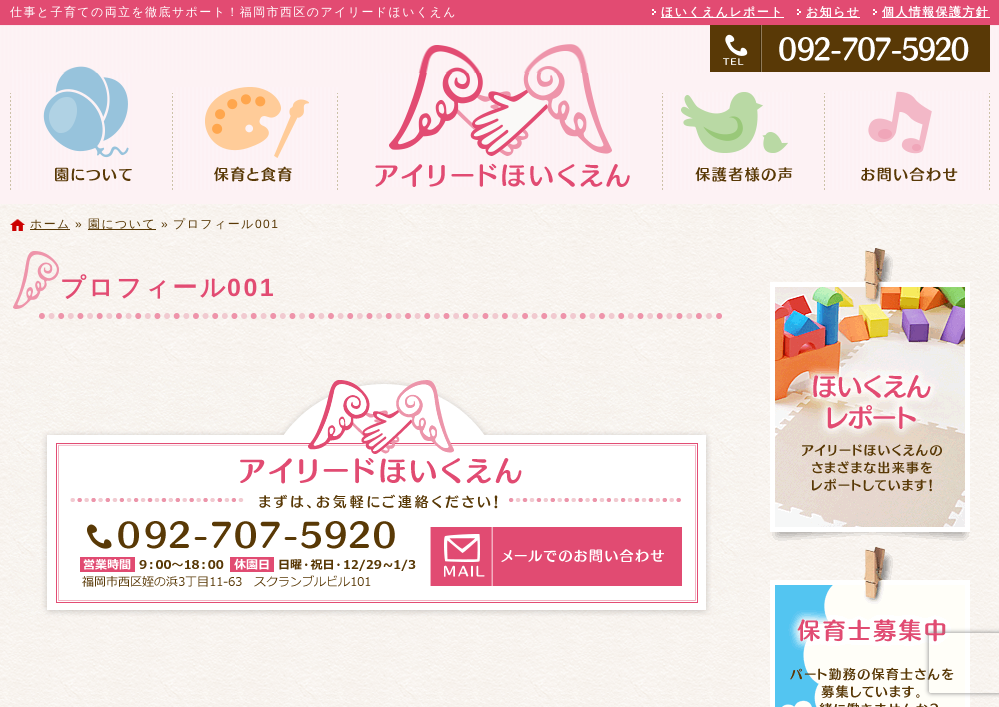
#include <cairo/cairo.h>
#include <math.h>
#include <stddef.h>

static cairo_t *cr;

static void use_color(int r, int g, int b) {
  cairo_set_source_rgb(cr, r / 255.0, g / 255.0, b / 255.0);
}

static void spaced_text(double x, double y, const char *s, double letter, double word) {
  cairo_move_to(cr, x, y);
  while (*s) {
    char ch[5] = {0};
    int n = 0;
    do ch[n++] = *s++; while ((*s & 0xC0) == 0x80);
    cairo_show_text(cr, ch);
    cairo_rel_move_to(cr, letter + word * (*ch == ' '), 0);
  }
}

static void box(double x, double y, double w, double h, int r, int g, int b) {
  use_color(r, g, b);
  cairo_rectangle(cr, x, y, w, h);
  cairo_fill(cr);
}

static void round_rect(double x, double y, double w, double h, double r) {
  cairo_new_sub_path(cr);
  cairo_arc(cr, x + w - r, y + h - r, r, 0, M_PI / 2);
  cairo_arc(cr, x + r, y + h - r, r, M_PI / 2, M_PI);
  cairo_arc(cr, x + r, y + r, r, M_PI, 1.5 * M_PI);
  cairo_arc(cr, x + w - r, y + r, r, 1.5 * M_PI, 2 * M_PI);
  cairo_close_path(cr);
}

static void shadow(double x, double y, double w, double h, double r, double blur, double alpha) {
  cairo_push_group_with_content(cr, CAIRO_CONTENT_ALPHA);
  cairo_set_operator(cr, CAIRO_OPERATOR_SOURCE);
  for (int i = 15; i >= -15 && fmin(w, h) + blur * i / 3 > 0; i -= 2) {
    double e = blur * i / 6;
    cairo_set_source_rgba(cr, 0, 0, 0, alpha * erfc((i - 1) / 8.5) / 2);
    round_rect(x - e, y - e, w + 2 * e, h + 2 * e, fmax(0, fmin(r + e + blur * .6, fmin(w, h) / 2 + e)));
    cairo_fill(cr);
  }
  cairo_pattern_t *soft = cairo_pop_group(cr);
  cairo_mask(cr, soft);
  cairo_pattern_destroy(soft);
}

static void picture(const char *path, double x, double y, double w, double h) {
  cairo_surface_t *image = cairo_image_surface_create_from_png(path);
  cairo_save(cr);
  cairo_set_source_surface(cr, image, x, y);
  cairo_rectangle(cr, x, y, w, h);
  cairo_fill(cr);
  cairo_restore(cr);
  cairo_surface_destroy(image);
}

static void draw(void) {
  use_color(255, 255, 255);
  cairo_paint(cr);
  picture("img_01.png", 0, 204, 999, 503);
  picture("img_02.png", 0, 0, 999, 73);
  picture("img_03.png", 652, 9, 4, 6);
  box(661, 17, 123, 1, 255, 255, 255);
  picture("img_03.png", 797, 9, 4, 6);
  box(806, 17, 54, 1, 255, 255, 255);
  picture("img_03.png", 873, 9, 4, 6);
  box(882, 17, 108, 1, 255, 255, 255);
  picture("img_04.png", 710, 25, 280, 47);
  box(0, 73, 999, 131, 253, 242, 244);
  picture("img_05.png", 10, 73, 122, 117);
  picture("img_06.png", 172, 87, 166, 103);
  picture("img_07.png", 375, 73, 255, 114);
  picture("img_08.png", 662, 92, 131, 98);
  picture("img_09.png", 824, 91, 166, 99);
  picture("img_10.png", 10, 219, 15, 12);
  box(30, 229, 40, 1, 89, 57, 6);
  box(88, 229, 68, 1, 89, 57, 6);
  picture("img_11.png", 10, 246, 730, 80);
  picture("img_12.png", 10, 376, 730, 240);
  picture("img_13.png", 770, 248, 200, 293);
  picture("img_14.png", 770, 547, 200, 160);
  cairo_save(cr);
  cairo_set_fill_rule(cr, CAIRO_FILL_RULE_EVEN_ODD);
  cairo_new_path(cr);
  cairo_move_to(cr, 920, 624);
  cairo_line_to(cr, 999, 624);
  cairo_line_to(cr, 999, 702);
  cairo_line_to(cr, 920, 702);
  cairo_close_path(cr);
  cairo_move_to(cr, 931, 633);
  cairo_line_to(cr, 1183, 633);
  cairo_curve_to(cr, 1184, 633, 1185, 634, 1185, 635);
  cairo_line_to(cr, 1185, 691);
  cairo_curve_to(cr, 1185, 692, 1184, 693, 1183, 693);
  cairo_line_to(cr, 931, 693);
  cairo_curve_to(cr, 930, 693, 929, 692, 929, 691);
  cairo_line_to(cr, 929, 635);
  cairo_curve_to(cr, 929, 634, 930, 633, 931, 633);
  cairo_close_path(cr);
  cairo_clip(cr);
  use_color(128, 128, 128);
  shadow(929, 633, 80, 60, 2, 2.5, 1);
  cairo_restore(cr);
  cairo_select_font_face(cr, "WenQuanYi Zen Hei Medium", CAIRO_FONT_SLANT_NORMAL, CAIRO_FONT_WEIGHT_NORMAL);
  cairo_set_font_size(cr, 12);
  use_color(255, 255, 255);
  spaced_text(10, 16, "仕事と子育ての両立を徹底サポート！福岡市西区のアイリードほいくえん", 1.4, 0);
  cairo_select_font_face(cr, "WenQuanYi Zen Hei", CAIRO_FONT_SLANT_NORMAL, CAIRO_FONT_WEIGHT_BOLD);
  spaced_text(661, 16, "ほいくえんレポート", 1.4, 0);
  spaced_text(806, 16, "お知らせ", 1.4, 0);
  spaced_text(882, 16, "個人情報保護方針", 1.4, 0);
  cairo_select_font_face(cr, "WenQuanYi Zen Hei Medium", CAIRO_FONT_SLANT_NORMAL, CAIRO_FONT_WEIGHT_NORMAL);
  use_color(89, 57, 6);
  spaced_text(30, 228, "ホーム", 1.4, 0);
  cairo_select_font_face(cr, "Liberation Sans", CAIRO_FONT_SLANT_NORMAL, CAIRO_FONT_WEIGHT_NORMAL);
  spaced_text(75, 228, "»", 1.4, 0);
  cairo_select_font_face(cr, "WenQuanYi Zen Hei Medium", CAIRO_FONT_SLANT_NORMAL, CAIRO_FONT_WEIGHT_NORMAL);
  spaced_text(88, 228, "園について", 1.4, 0);
  cairo_select_font_face(cr, "Liberation Sans", CAIRO_FONT_SLANT_NORMAL, CAIRO_FONT_WEIGHT_NORMAL);
  spaced_text(161, 228, "»", 1.4, 0);
  cairo_select_font_face(cr, "WenQuanYi Zen Hei Medium", CAIRO_FONT_SLANT_NORMAL, CAIRO_FONT_WEIGHT_NORMAL);
  spaced_text(173, 228, "プロフィール", 1.4, 0);
  cairo_select_font_face(cr, "Liberation Sans", CAIRO_FONT_SLANT_NORMAL, CAIRO_FONT_WEIGHT_NORMAL);
  spaced_text(255, 228, "001", 1.4, 0);
  cairo_select_font_face(cr, "WenQuanYi Zen Hei", CAIRO_FONT_SLANT_NORMAL, CAIRO_FONT_WEIGHT_BOLD);
  cairo_set_font_size(cr, 25);
  use_color(226, 75, 114);
  spaced_text(60, 296, "プロフィール", 2.5, 0);
  cairo_select_font_face(cr, "Liberation Sans", CAIRO_FONT_SLANT_NORMAL, CAIRO_FONT_WEIGHT_BOLD);
  spaced_text(227, 296, "001", 2.5, 0);
}

int main(void) {
  cairo_surface_t *surface = cairo_image_surface_create(CAIRO_FORMAT_RGB24, 999, 707);
  cr = cairo_create(surface);
  cairo_font_options_t *options = cairo_font_options_create();
  cairo_font_options_set_hint_metrics(options, CAIRO_HINT_METRICS_OFF);
  cairo_font_options_set_hint_style(options, CAIRO_HINT_STYLE_NONE);
  cairo_set_font_options(cr, options);
  cairo_set_miter_limit(cr, 4);
  draw();
  cairo_surface_write_to_png(surface, "out.png");
  cairo_font_options_destroy(options);
  cairo_destroy(cr);
  cairo_surface_destroy(surface);
  return 0;
}
